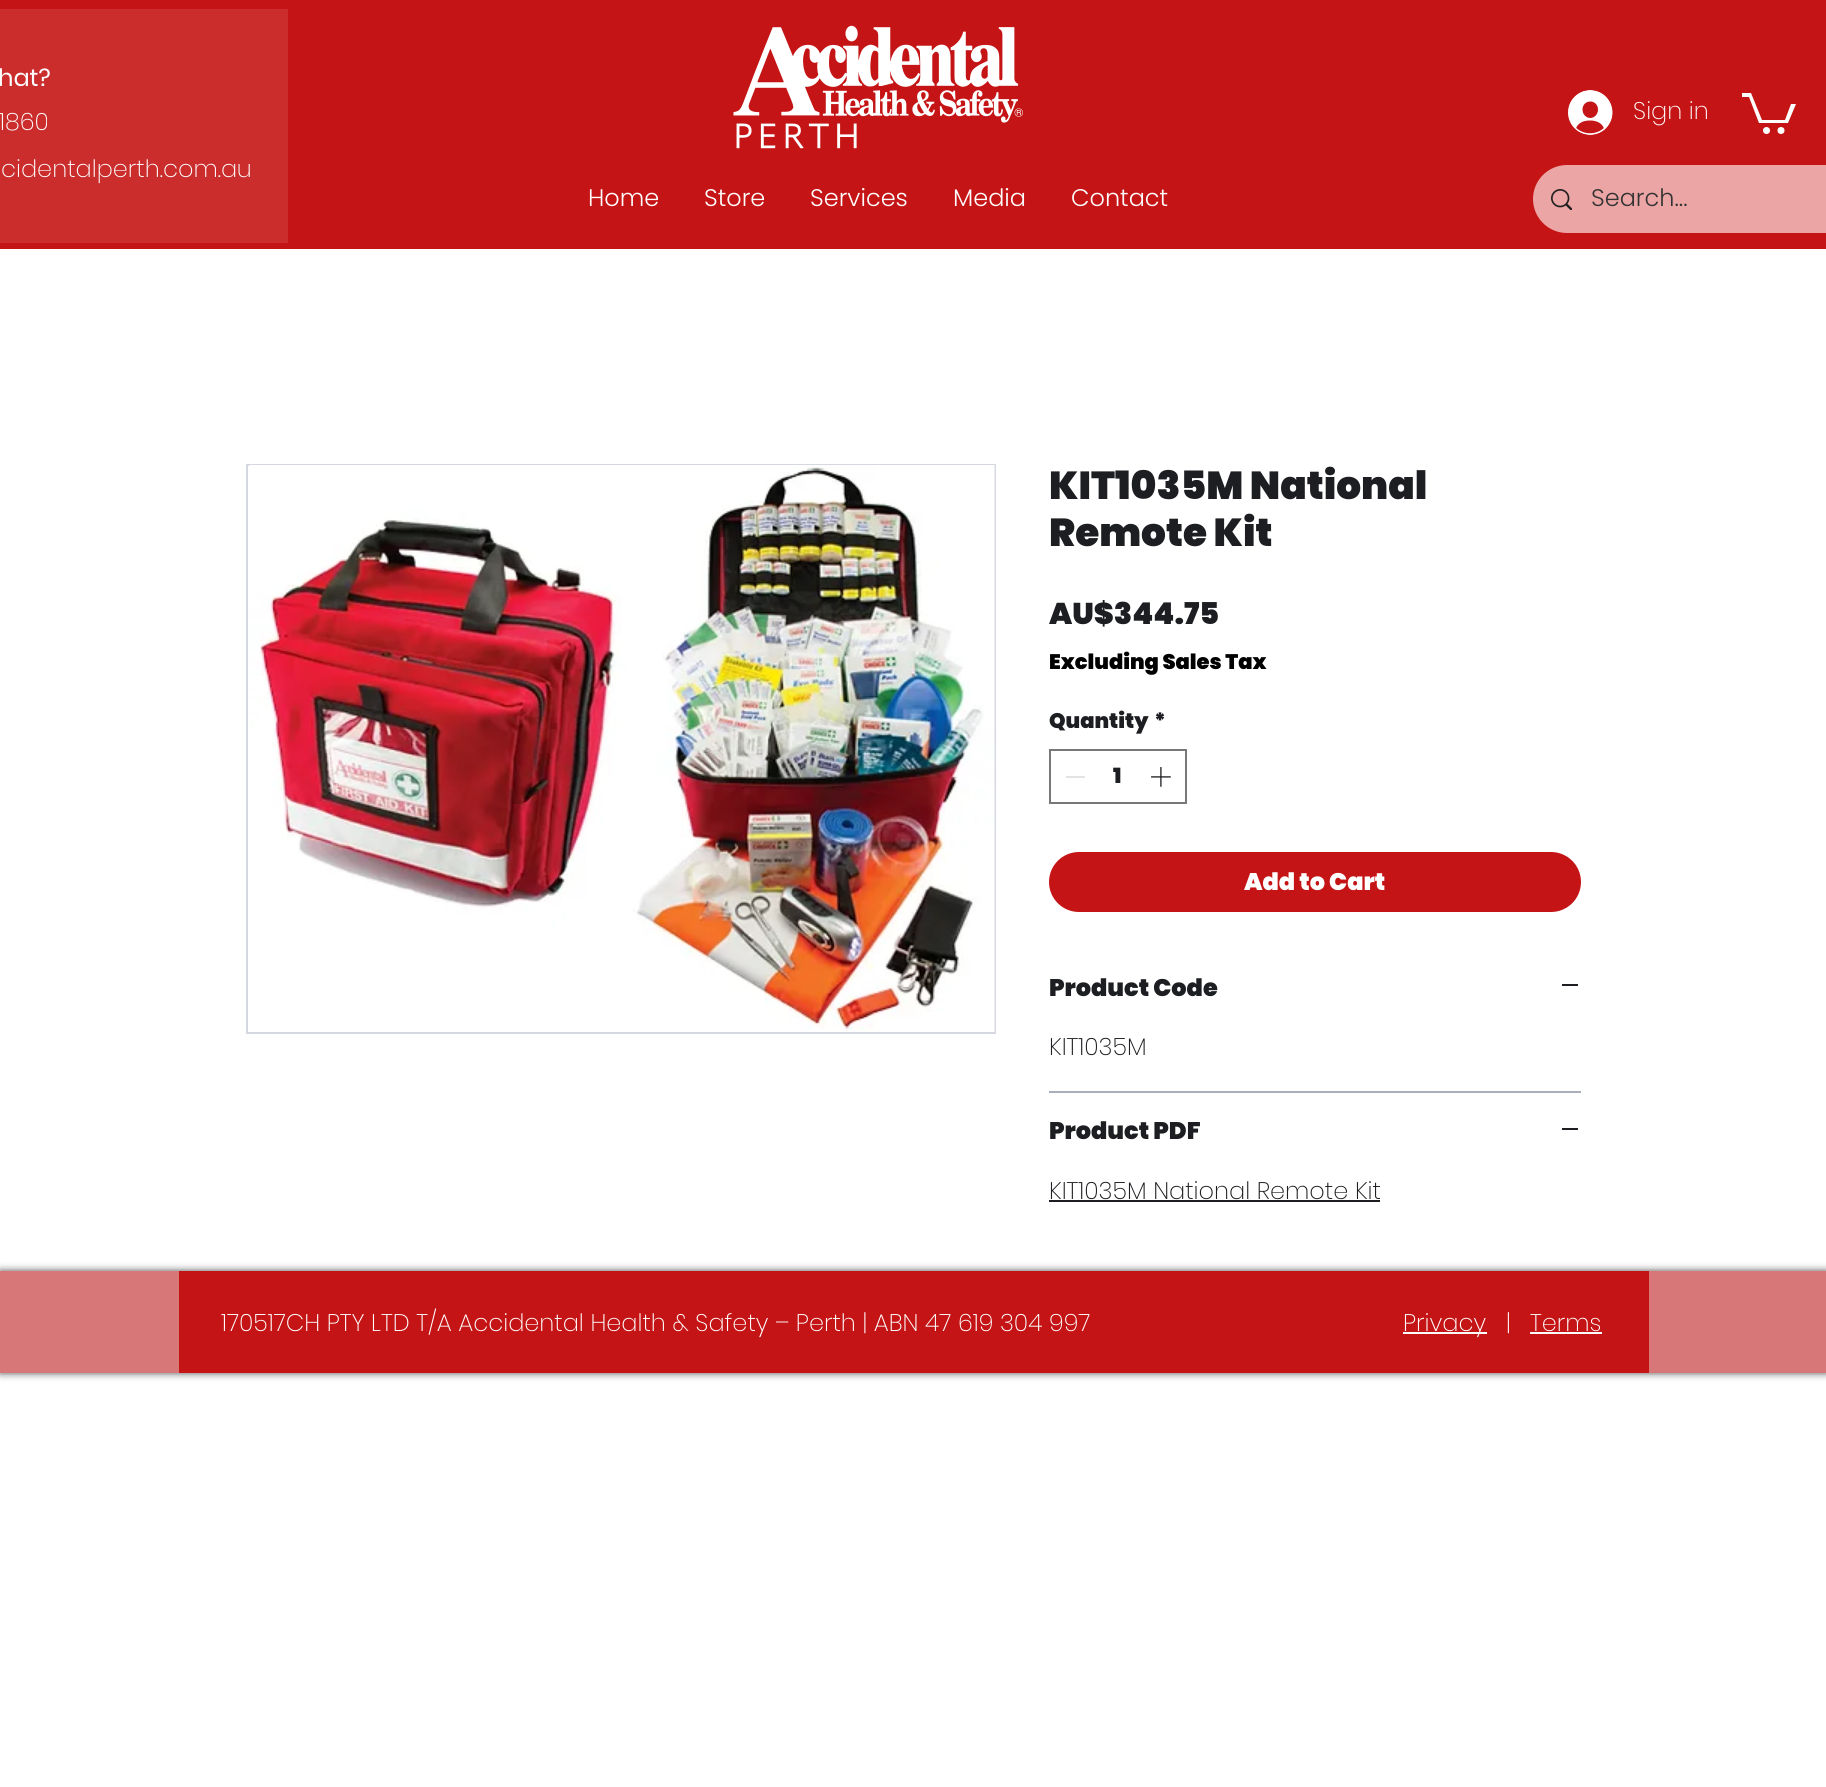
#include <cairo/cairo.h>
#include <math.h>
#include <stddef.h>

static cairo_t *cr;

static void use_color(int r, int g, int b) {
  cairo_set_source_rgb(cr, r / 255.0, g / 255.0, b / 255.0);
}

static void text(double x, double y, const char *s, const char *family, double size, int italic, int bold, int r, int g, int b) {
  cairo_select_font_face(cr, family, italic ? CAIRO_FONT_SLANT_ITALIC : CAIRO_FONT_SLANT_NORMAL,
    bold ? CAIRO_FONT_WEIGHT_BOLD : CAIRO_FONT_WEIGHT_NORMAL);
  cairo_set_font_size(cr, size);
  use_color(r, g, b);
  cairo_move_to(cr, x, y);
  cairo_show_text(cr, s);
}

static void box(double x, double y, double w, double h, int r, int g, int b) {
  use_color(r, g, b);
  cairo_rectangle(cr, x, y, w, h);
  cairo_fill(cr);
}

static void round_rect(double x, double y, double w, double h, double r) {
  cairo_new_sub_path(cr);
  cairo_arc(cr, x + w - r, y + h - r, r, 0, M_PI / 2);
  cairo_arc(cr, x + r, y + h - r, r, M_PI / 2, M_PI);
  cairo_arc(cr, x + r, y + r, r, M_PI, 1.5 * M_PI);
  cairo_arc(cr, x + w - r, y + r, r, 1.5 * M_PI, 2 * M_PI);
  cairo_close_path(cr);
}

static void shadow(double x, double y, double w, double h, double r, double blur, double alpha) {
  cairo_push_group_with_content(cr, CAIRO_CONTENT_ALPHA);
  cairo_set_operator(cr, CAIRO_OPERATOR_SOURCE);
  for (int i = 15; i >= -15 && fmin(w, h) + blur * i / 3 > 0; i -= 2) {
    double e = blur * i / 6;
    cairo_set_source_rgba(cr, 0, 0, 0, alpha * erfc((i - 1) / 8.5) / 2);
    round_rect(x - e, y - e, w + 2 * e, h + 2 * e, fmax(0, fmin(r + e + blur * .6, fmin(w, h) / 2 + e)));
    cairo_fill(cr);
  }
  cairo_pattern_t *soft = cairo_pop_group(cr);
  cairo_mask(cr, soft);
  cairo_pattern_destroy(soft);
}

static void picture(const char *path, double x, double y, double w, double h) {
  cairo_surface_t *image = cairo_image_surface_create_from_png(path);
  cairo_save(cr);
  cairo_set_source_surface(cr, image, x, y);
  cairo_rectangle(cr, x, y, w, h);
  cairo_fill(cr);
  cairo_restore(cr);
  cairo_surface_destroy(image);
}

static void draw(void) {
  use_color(255, 255, 255);
  cairo_paint(cr);
  box(0, 0, 1826, 249, 197, 20, 21);
  box(0, 9, 288, 234, 203, 44, 44);
  picture("img_01.png", 733, 25, 290, 124);
  picture("img_02.png", 1568, 90, 45, 45);
  use_color(255, 255, 255);
  cairo_new_path(cr);
  cairo_move_to(cr, 1796, 104);
  cairo_line_to(cr, 1788, 123);
  cairo_line_to(cr, 1759, 123);
  cairo_line_to(cr, 1749, 97);
  cairo_line_to(cr, 1742, 97);
  cairo_line_to(cr, 1742, 93);
  cairo_line_to(cr, 1751, 93);
  cairo_line_to(cr, 1762, 120);
  cairo_line_to(cr, 1785, 120);
  cairo_line_to(cr, 1791, 104);
  cairo_fill(cr);
  cairo_arc(cr, 1781, 130.5, 3.5, 0, 2 * M_PI);
  cairo_fill(cr);
  cairo_arc(cr, 1766.5, 130.5, 3.5, 0, 2 * M_PI);
  cairo_fill(cr);
  use_color(236, 165, 165);
  round_rect(1533, 165, 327, 68, 34);
  cairo_fill(cr);
  picture("img_03.png", 1551, 189, 21, 21);
  cairo_rectangle(cr, 247, 465, 748, 568);
  use_color(213, 216, 224);
  cairo_stroke(cr);
  picture("img_04.png", 248, 465, 747, 567);
  cairo_rectangle(cr, 1050, 750, 136, 53);
  use_color(119, 120, 122);
  cairo_stroke(cr);
  box(1066, 776, 19, 2, 227, 227, 227);
  picture("img_05.png", 1151, 767, 20, 20);
  use_color(197, 20, 21);
  round_rect(1049, 852, 532, 60, 30);
  cairo_fill(cr);
  box(1049, 1091, 532, 2, 170, 174, 186);
  box(1562, 984, 16, 2, 29, 30, 33);
  box(1562, 1128, 16, 2, 29, 30, 33);
  box(1049, 1200, 331, 2, 29, 30, 33);
  use_color(0, 0, 0);
  shadow(0, 1271, 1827, 102, 0, 4, 0.7);
  box(0, 1271, 1826, 102, 216, 119, 120);
  box(179, 1271, 1470, 102, 197, 20, 21);
  box(1403, 1332, 84, 2, 255, 255, 255);
  box(1530, 1332, 72, 2, 255, 255, 255);
  text(-2, 86, "hat?", "Poppins", 24, 0, 0, 255, 255, 255);
  text(-1, 130, "1860", "Poppins ExtraLight", 24, 0, 0, 255, 255, 255);
  text(1, 177, "cidentalperth.com.au", "Poppins ExtraLight", 24, 0, 0, 255, 255, 255);
  text(1633, 119, "Sign in", "Poppins ExtraLight", 24, 0, 0, 255, 255, 255);
  text(588, 206, "Home", "Poppins Light", 24, 0, 0, 255, 255, 255);
  text(704, 206, "Store", "Poppins Light", 24, 0, 0, 255, 255, 255);
  text(810, 206, "Services", "Poppins Light", 24, 0, 0, 255, 255, 255);
  text(953, 206, "Media", "Poppins Light", 24, 0, 0, 255, 255, 255);
  text(1071, 206, "Contact", "Poppins Light", 24, 0, 0, 255, 255, 255);
  text(1591, 206, "Search...", "Poppins Light", 24, 0, 0, 51, 51, 51);
  text(1049, 499, "KIT1035M National", "Poppins Black", 39, 0, 0, 29, 30, 33);
  text(1049, 546, "Remote Kit", "Poppins Black", 39, 0, 0, 29, 30, 33);
  text(1049, 624, "AU$344.75", "Poppins Black", 30, 0, 0, 29, 30, 33);
  text(1049, 669, "Excluding Sales Tax", "Poppins Black", 21, 0, 0, 0, 0, 0);
  text(1049, 728, "Quantity", "Poppins Black", 21, 0, 0, 29, 30, 33);
  text(1154, 728, "*", "Poppins Black", 21, 0, 0, 29, 30, 33);
  text(1113, 783, "1", "Poppins Black", 21, 0, 0, 29, 30, 33);
  text(1244, 890, "Add to Cart", "Poppins Black", 24, 0, 0, 255, 255, 255);
  text(1049, 996, "Product Code", "Poppins Black", 24, 0, 0, 29, 30, 33);
  text(1049, 1055, "KIT1035M", "Poppins ExtraLight", 24, 0, 0, 29, 30, 33);
  text(1049, 1139, "Product PDF", "Poppins Black", 24, 0, 0, 29, 30, 33);
  text(1049, 1199, "KIT1035M National Remote Kit", "Poppins ExtraLight", 24, 0, 0, 29, 30, 33);
  text(221, 1331, "170517CH PTY LTD T/A Accidental Health & Safety – Perth | ABN 47 619 304 997", "Poppins ExtraLight", 24, 0, 0, 255, 255, 255);
  text(1403, 1331, "Privacy", "Poppins ExtraLight", 24, 0, 0, 255, 255, 255);
  text(1506, 1331, "|", "Poppins ExtraLight", 24, 0, 0, 255, 255, 255);
  text(1530, 1331, "Terms", "Poppins ExtraLight", 24, 0, 0, 255, 255, 255);
}

int main(void) {
  cairo_surface_t *surface = cairo_image_surface_create(CAIRO_FORMAT_RGB24, 1826, 1787);
  cr = cairo_create(surface);
  cairo_font_options_t *options = cairo_font_options_create();
  cairo_font_options_set_hint_metrics(options, CAIRO_HINT_METRICS_OFF);
  cairo_font_options_set_hint_style(options, CAIRO_HINT_STYLE_NONE);
  cairo_set_font_options(cr, options);
  cairo_set_miter_limit(cr, 4);
  draw();
  cairo_surface_write_to_png(surface, "out.png");
  cairo_font_options_destroy(options);
  cairo_destroy(cr);
  cairo_surface_destroy(surface);
  return 0;
}
